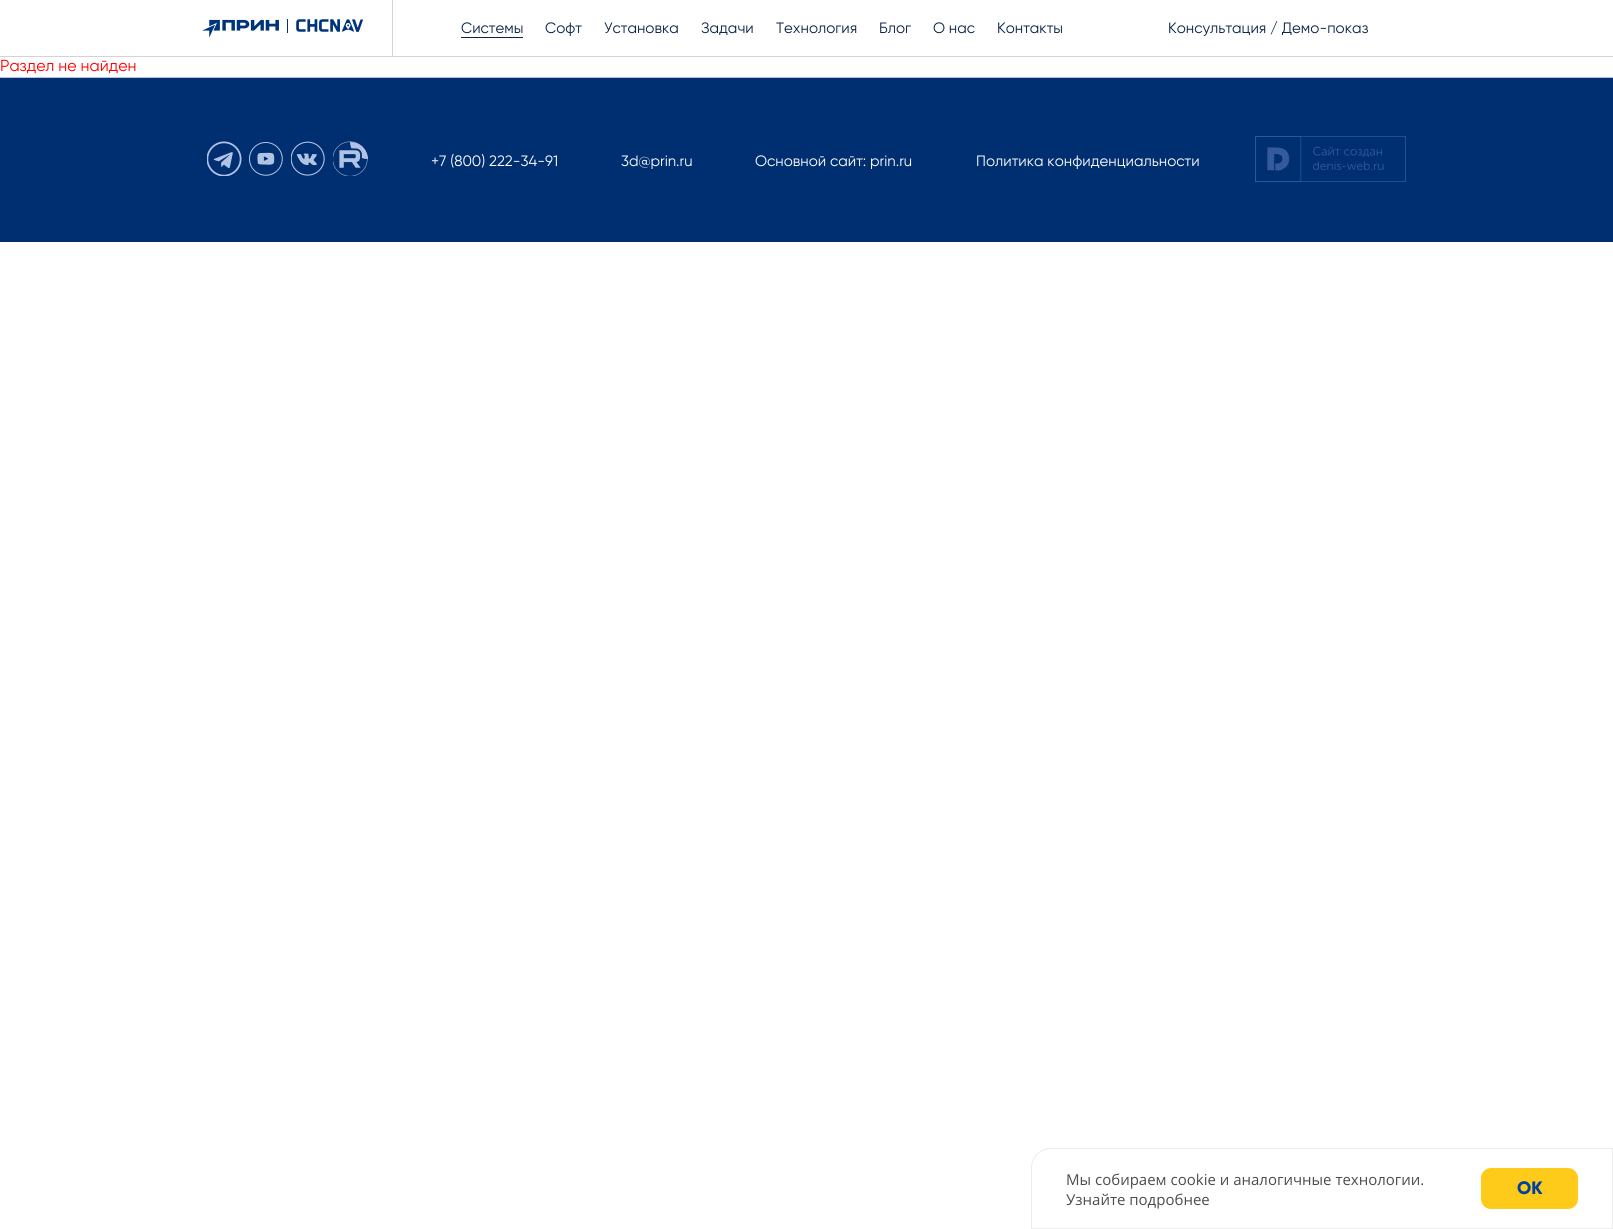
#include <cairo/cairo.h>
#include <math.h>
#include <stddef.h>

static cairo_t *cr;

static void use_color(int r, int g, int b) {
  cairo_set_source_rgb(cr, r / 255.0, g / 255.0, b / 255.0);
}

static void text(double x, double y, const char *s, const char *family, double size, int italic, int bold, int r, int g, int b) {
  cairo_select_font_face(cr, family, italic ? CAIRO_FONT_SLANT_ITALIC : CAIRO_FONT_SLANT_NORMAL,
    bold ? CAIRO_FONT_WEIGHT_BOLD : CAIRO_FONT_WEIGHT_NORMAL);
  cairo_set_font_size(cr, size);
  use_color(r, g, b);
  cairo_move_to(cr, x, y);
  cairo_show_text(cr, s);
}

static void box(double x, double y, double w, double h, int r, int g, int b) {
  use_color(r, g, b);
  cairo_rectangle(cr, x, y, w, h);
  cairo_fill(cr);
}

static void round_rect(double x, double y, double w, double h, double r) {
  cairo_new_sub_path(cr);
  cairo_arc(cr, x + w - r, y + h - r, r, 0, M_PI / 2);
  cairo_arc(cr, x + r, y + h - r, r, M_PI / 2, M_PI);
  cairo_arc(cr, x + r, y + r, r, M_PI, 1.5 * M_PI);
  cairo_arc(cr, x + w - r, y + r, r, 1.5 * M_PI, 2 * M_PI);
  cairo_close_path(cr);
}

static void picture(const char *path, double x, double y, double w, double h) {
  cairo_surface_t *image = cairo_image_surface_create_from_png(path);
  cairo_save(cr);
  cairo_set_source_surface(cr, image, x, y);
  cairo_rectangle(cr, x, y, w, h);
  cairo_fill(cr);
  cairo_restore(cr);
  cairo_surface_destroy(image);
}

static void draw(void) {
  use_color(255, 255, 255);
  cairo_paint(cr);
  box(0, 56, 1613, 1, 211, 211, 211);
  box(392, 0, 1, 56, 211, 211, 211);
  picture("img_01.png", 202, 19, 161, 19);
  box(461, 37, 62, 1, 9, 34, 71);
  box(0, 78, 1613, 164, 0, 47, 113);
  box(0, 77, 1613, 1, 176, 195, 229);
  picture("img_02.png", 207, 141, 35, 35);
  picture("img_03.png", 249, 142, 34, 34);
  picture("img_04.png", 291, 141, 34, 35);
  picture("img_05.png", 333, 141, 35, 35);
  picture("img_06.png", 1255, 136, 151, 46);
  cairo_new_path(cr);
  cairo_move_to(cr, 1051, 1148.5);
  cairo_line_to(cr, 1612.5, 1148.5);
  cairo_line_to(cr, 1612.5, 1228.5);
  cairo_line_to(cr, 1031.5, 1228.5);
  cairo_line_to(cr, 1031.5, 1168);
  cairo_curve_to(cr, 1031.5, 1157, 1040, 1148.5, 1051, 1148.5);
  cairo_close_path(cr);
  use_color(236, 236, 236);
  cairo_set_line_width(cr, 1);
  cairo_stroke(cr);
  use_color(254, 203, 27);
  round_rect(1481, 1168, 97, 41, 10);
  cairo_fill(cr);
  text(461, 33, "Системы", "Gilroy", 15, 0, 0, 9, 34, 71);
  text(545, 33, "Софт", "Gilroy", 15, 0, 0, 9, 34, 71);
  text(604, 33, "Установка", "Gilroy", 15, 0, 0, 9, 34, 71);
  text(701, 33, "Задачи", "Gilroy", 15, 0, 0, 9, 34, 71);
  text(776, 33, "Технология", "Gilroy", 15, 0, 0, 9, 34, 71);
  text(879, 33, "Блог", "Gilroy", 15, 0, 0, 9, 34, 71);
  text(933, 33, "О нас", "Gilroy", 15, 0, 0, 9, 34, 71);
  text(997, 33, "Контакты", "Gilroy", 15, 0, 0, 9, 34, 71);
  text(1168, 33, "Консультация / Демо-показ", "Gilroy", 15, 0, 0, 9, 34, 71);
  text(0, 71, "Раздел не найден", "Gilroy", 16, 0, 0, 255, 0, 0);
  text(431, 166, "+7 (800) 222-34-91", "Gilroy", 15, 0, 0, 255, 255, 255);
  text(621, 166, "3d@prin.ru", "Gilroy", 15, 0, 0, 255, 255, 255);
  text(755, 166, "Основной сайт: prin.ru", "Gilroy", 15, 0, 0, 255, 255, 255);
  text(976, 166, "Политика конфиденциальности", "Gilroy", 15, 0, 0, 255, 255, 255);
  text(1066, 1185, "Мы собираем cookie и аналогичные технологии.", "Open Sans", 15, 0, 0, 77, 77, 77);
  text(1066, 1205, "Узнайте подробнее", "Open Sans", 15, 0, 0, 77, 77, 77);
  text(1517, 1194, "ОК", "Gilroy ExtraBold", 18, 0, 0, 0, 66, 160);
}

int main(void) {
  cairo_surface_t *surface = cairo_image_surface_create(CAIRO_FORMAT_RGB24, 1613, 1229);
  cr = cairo_create(surface);
  cairo_font_options_t *options = cairo_font_options_create();
  cairo_font_options_set_hint_metrics(options, CAIRO_HINT_METRICS_OFF);
  cairo_font_options_set_hint_style(options, CAIRO_HINT_STYLE_NONE);
  cairo_set_font_options(cr, options);
  cairo_set_miter_limit(cr, 4);
  draw();
  cairo_surface_write_to_png(surface, "out.png");
  cairo_font_options_destroy(options);
  cairo_destroy(cr);
  cairo_surface_destroy(surface);
  return 0;
}
